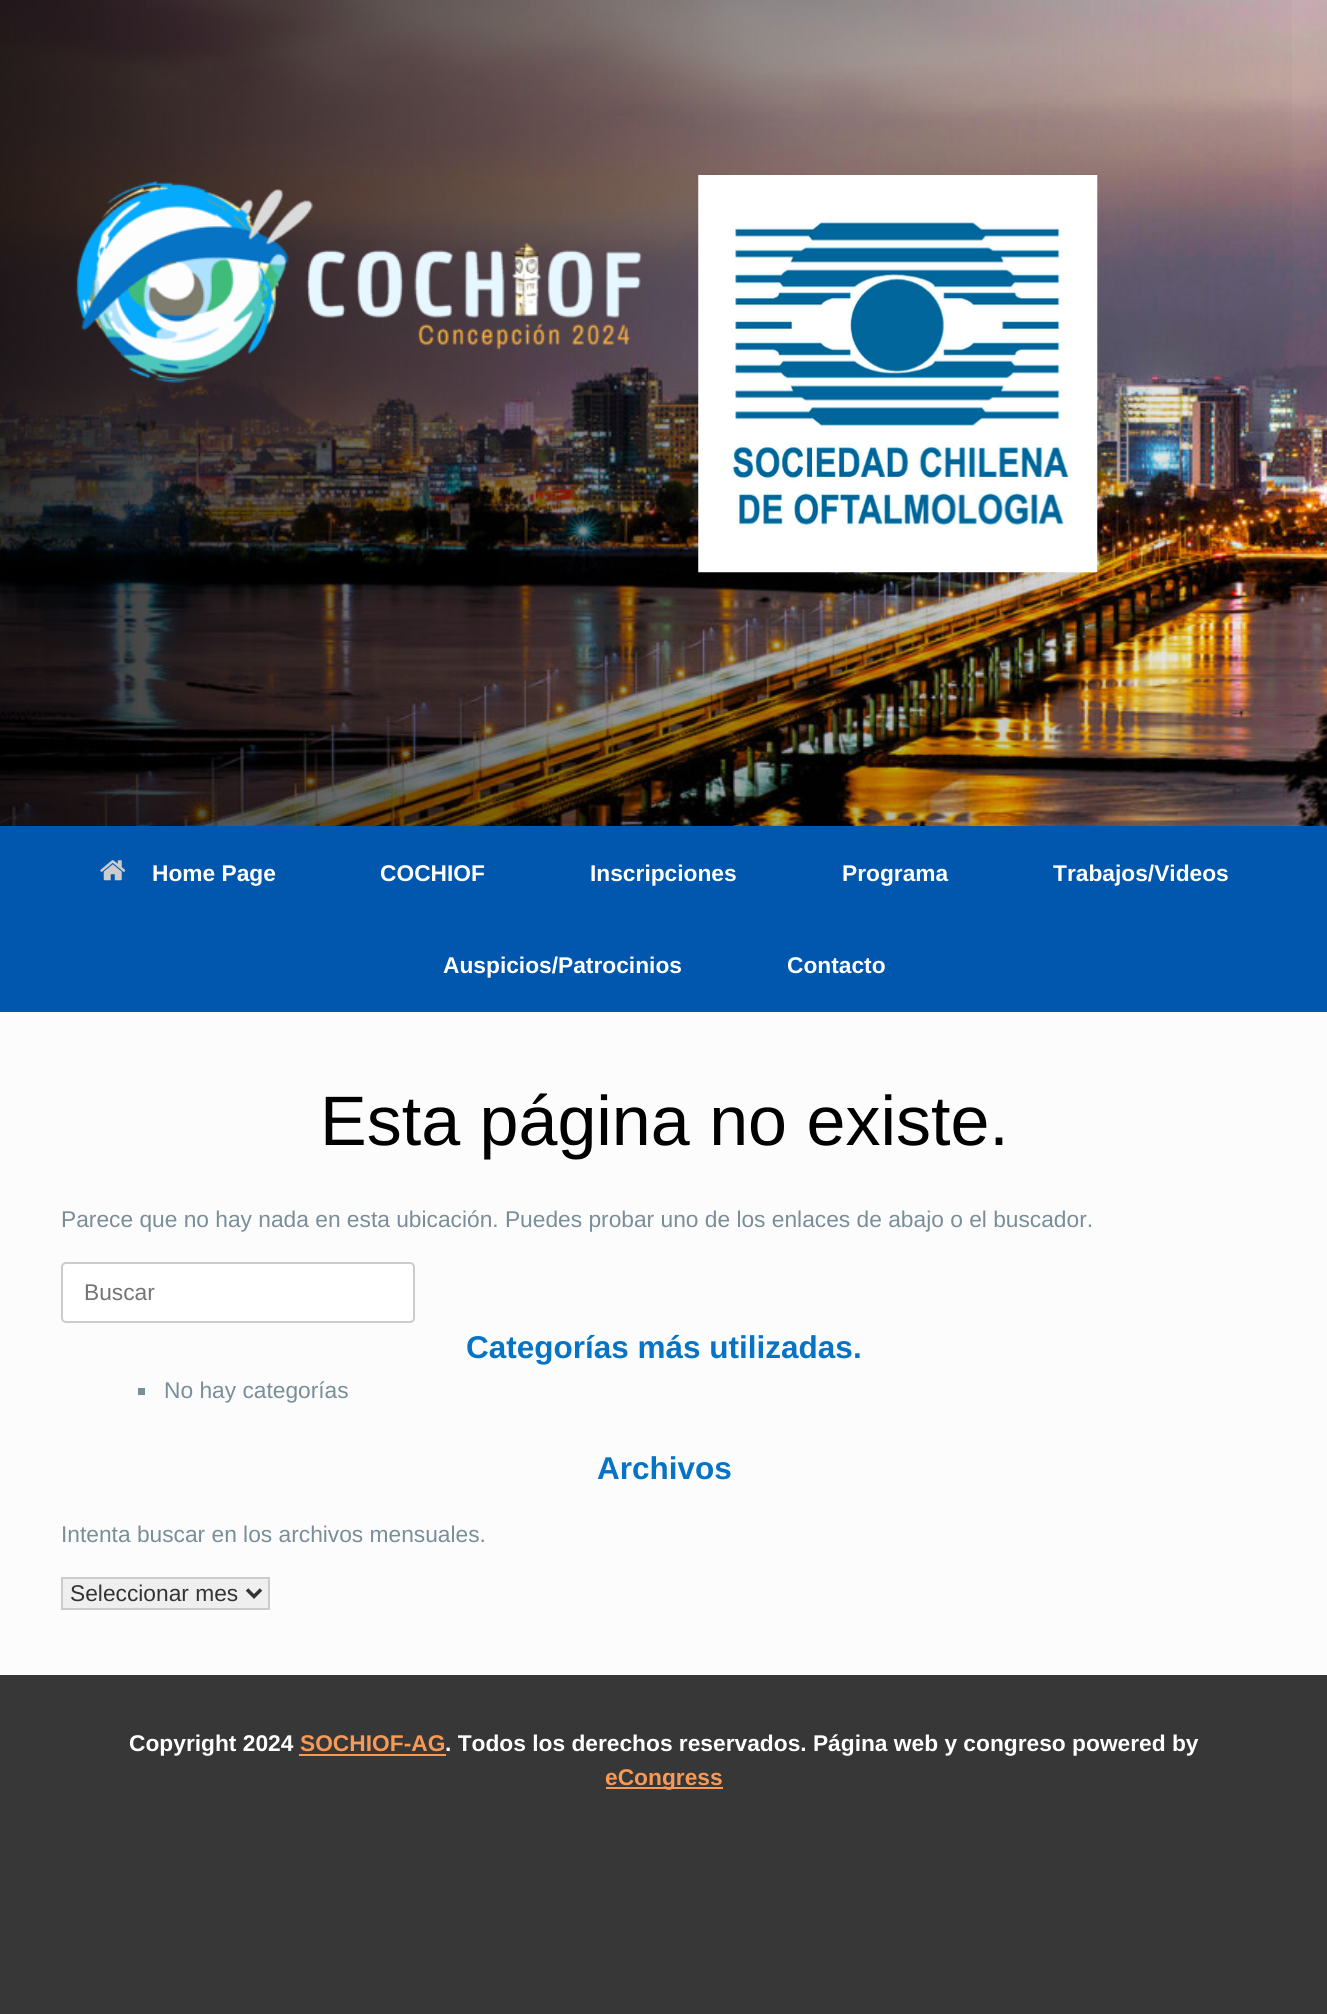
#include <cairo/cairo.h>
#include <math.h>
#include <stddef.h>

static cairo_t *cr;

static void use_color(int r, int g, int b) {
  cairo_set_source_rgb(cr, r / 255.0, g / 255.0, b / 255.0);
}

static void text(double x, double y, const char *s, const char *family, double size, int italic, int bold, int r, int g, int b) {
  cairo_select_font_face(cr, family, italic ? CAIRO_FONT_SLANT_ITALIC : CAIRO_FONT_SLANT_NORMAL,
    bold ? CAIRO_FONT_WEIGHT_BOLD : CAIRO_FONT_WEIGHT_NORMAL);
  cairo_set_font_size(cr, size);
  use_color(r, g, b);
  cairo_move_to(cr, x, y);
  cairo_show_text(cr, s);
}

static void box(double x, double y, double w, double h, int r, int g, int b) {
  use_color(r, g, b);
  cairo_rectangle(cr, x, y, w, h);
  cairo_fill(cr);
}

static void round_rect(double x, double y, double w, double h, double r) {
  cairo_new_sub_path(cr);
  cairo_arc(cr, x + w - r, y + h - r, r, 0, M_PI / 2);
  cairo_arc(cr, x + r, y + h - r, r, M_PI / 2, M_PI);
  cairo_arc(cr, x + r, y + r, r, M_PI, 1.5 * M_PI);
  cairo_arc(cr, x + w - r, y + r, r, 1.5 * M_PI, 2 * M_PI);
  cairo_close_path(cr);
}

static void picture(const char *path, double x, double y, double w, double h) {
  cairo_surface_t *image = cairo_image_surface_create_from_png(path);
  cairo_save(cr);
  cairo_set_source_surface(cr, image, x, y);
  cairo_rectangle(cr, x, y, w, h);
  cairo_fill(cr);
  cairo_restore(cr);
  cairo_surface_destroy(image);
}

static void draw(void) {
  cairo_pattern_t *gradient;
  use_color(55, 55, 55);
  cairo_paint(cr);
  picture("img_01.png", 0, 0, 1327, 826);
  gradient = cairo_pattern_create_linear(0, 506, 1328, 506);
  cairo_pattern_add_color_stop_rgba(gradient, 0, 0, 0, 0, 0.8);
  cairo_pattern_add_color_stop_rgba(gradient, 1, 0, 0, 0, 0);
  cairo_set_source(cr, gradient);
  cairo_pattern_destroy(gradient);
  cairo_rectangle(cr, 0, 0, 1292, 826);
  cairo_fill(cr);
  picture("img_02.png", 76, 180, 566, 204);
  picture("img_03.png", 698, 175, 400, 398);
  box(0, 826, 1327, 186, 1, 87, 173);
  picture("img_04.png", 100, 860, 26, 21);
  box(0, 1012, 1327, 663, 252, 252, 252);
  use_color(255, 255, 255);
  round_rect(62, 1263, 352, 59, 4);
  cairo_fill_preserve(cr);
  use_color(204, 204, 204);
  cairo_stroke(cr);
  box(138, 1388, 7, 7, 121, 142, 153);
  use_color(239, 239, 239);
  cairo_rectangle(cr, 62, 1578, 207, 31);
  cairo_fill_preserve(cr);
  use_color(204, 204, 204);
  cairo_stroke(cr);
  cairo_new_path(cr);
  cairo_move_to(cr, 247, 1589.5);
  cairo_line_to(cr, 254, 1596.5);
  cairo_line_to(cr, 261, 1589.5);
  use_color(51, 51, 51);
  cairo_set_line_width(cr, 3.5);
  cairo_stroke(cr);
  box(299, 1754, 147, 2, 248, 153, 85);
  box(606, 1787, 117, 2, 248, 153, 85);
  text(152, 881, "Home Page", "Liberation Sans", 22.75, 0, 1, 255, 255, 255);
  text(380, 881, "COCHIOF", "Liberation Sans", 22.75, 0, 1, 255, 255, 255);
  text(590, 881, "Inscripciones", "Liberation Sans", 22.75, 0, 1, 255, 255, 255);
  text(842, 881, "Programa", "Liberation Sans", 22.75, 0, 1, 255, 255, 255);
  text(1053, 881, "Trabajos/Videos", "Liberation Sans", 22.75, 0, 1, 255, 255, 255);
  text(443, 973, "Auspicios/Patrocinios", "Liberation Sans", 22.75, 0, 1, 255, 255, 255);
  text(787, 973, "Contacto", "Liberation Sans", 22.75, 0, 1, 255, 255, 255);
  text(320, 1145, "Esta página no existe.", "Liberation Sans", 70, 0, 0, 0, 0, 0);
  text(61, 1227, "Parece que no hay nada en esta ubicación. Puedes probar uno de los enlaces de abajo o el buscador.", "Liberation Sans", 22.75, 0, 0, 121, 142, 153);
  text(84, 1300, "Buscar", "Liberation Sans", 22.75, 0, 0, 117, 117, 117);
  text(466, 1358, "Categorías más utilizadas.", "Liberation Sans", 31.5, 0, 1, 6, 115, 197);
  text(164, 1398, "No hay categorías", "Liberation Sans", 22.75, 0, 0, 121, 142, 153);
  text(597, 1479, "Archivos", "Liberation Sans", 31.5, 0, 1, 6, 115, 197);
  text(61, 1542, "Intenta buscar en los archivos mensuales.", "Liberation Sans", 22.75, 0, 0, 121, 142, 153);
  text(70, 1601, "Seleccionar mes", "Liberation Sans", 22.75, 0, 0, 51, 51, 51);
  text(129, 1751, "Copyright 2024", "Liberation Sans", 22.75, 0, 1, 255, 255, 255);
  text(300, 1751, "SOCHIOF-AG", "Liberation Sans", 22.75, 0, 1, 248, 153, 85);
  text(445, 1751, ". Todos los derechos reservados. Página web y congreso powered by", "Liberation Sans", 22.75, 0, 1, 255, 255, 255);
  text(605, 1785, "eCongress", "Liberation Sans", 22.75, 0, 1, 248, 153, 85);
}

int main(void) {
  cairo_surface_t *surface = cairo_image_surface_create(CAIRO_FORMAT_RGB24, 1327, 2014);
  cr = cairo_create(surface);
  cairo_font_options_t *options = cairo_font_options_create();
  cairo_font_options_set_hint_metrics(options, CAIRO_HINT_METRICS_OFF);
  cairo_font_options_set_hint_style(options, CAIRO_HINT_STYLE_NONE);
  cairo_set_font_options(cr, options);
  cairo_set_miter_limit(cr, 4);
  draw();
  cairo_surface_write_to_png(surface, "out.png");
  cairo_font_options_destroy(options);
  cairo_destroy(cr);
  cairo_surface_destroy(surface);
  return 0;
}
